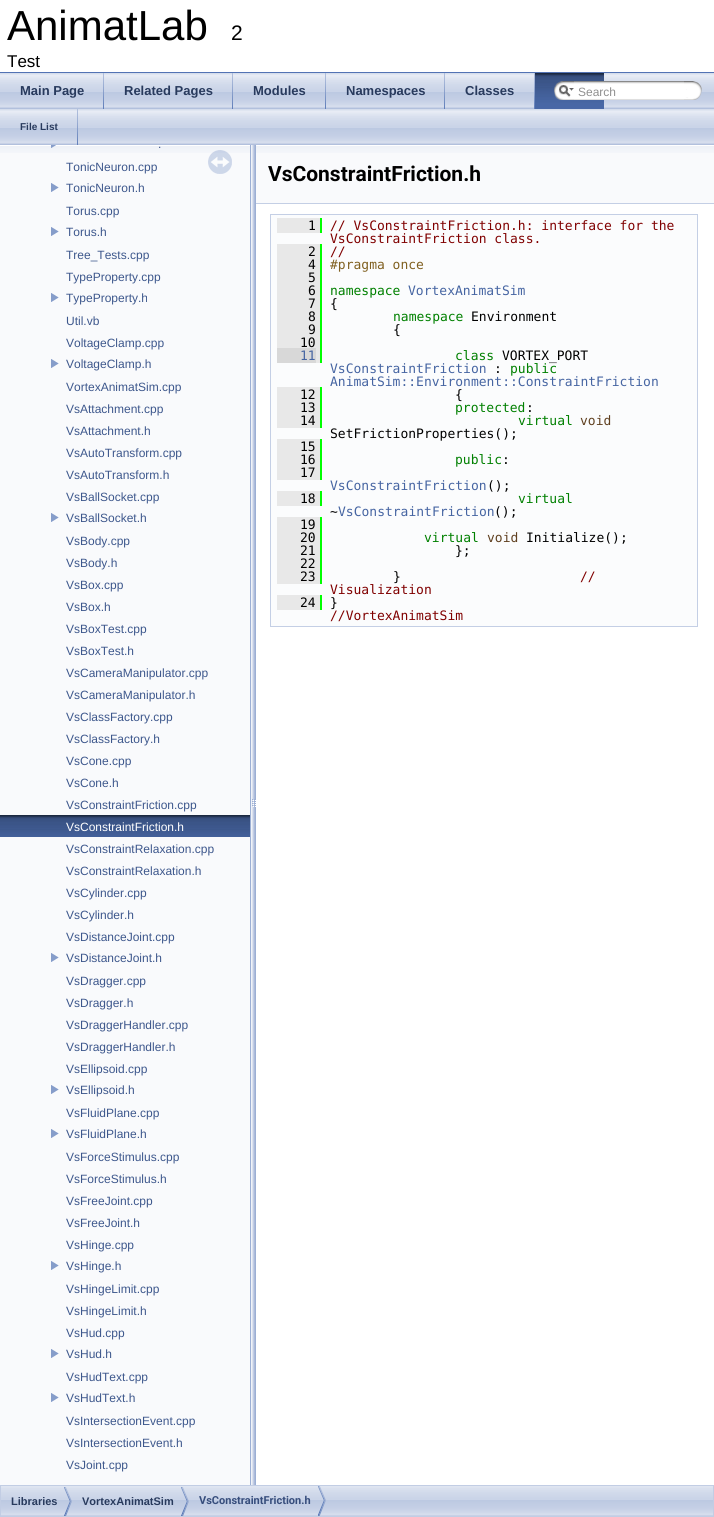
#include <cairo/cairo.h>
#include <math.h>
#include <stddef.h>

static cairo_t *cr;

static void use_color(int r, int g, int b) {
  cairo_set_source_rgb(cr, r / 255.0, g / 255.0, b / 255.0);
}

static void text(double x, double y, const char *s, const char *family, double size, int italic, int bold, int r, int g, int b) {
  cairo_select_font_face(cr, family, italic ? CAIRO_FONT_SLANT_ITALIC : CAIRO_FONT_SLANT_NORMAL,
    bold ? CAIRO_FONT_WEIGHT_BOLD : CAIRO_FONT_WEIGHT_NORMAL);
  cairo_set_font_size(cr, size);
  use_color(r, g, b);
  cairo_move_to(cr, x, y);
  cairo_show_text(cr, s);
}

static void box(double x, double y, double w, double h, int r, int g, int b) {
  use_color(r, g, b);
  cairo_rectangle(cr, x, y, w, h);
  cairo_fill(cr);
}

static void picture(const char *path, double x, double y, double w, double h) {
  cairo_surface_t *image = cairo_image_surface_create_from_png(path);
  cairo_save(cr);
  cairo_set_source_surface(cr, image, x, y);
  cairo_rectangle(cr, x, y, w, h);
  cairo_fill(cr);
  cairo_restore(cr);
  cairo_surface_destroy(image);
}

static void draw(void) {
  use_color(255, 255, 255);
  cairo_paint(cr);
  box(0, 72, 714, 1, 83, 115, 180);
  picture("img_01.png", 0, 73, 714, 36);
  picture("img_02.png", 103, 73, 1, 36);
  picture("img_02.png", 232, 73, 1, 36);
  picture("img_02.png", 325, 73, 1, 36);
  picture("img_02.png", 444, 73, 1, 36);
  picture("img_02.png", 534, 73, 1, 36);
  picture("img_03.png", 535, 73, 69, 36);
  picture("img_04.png", 554, 81, 20, 19);
  picture("img_05.png", 559, 85, 15, 12);
  picture("img_06.png", 574, 81, 110, 19);
  picture("img_07.png", 684, 81, 18, 19);
  picture("img_01.png", 0, 109, 714, 36);
  picture("img_02.png", 77, 109, 1, 36);
  box(0, 153, 250, 1332, 249, 250, 252);
  picture("img_08.png", 0, 145, 250, 8);
  picture("img_09.png", 51, 145, 5, 3);
  picture("img_10.png", 51, 183, 8, 9);
  picture("img_10.png", 51, 227, 8, 9);
  picture("img_10.png", 51, 293, 8, 9);
  picture("img_10.png", 51, 359, 8, 9);
  picture("img_10.png", 51, 513, 8, 9);
  picture("img_11.png", 0, 815, 250, 22);
  picture("img_10.png", 51, 953, 8, 9);
  picture("img_10.png", 51, 1085, 8, 9);
  picture("img_10.png", 51, 1129, 8, 9);
  picture("img_10.png", 51, 1261, 8, 9);
  picture("img_10.png", 51, 1349, 8, 9);
  picture("img_10.png", 51, 1393, 8, 9);
  picture("img_12.png", 208, 150, 24, 24);
  picture("img_13.png", 250, 145, 6, 1340);
  box(256, 153, 458, 50, 249, 250, 252);
  picture("img_14.png", 256, 145, 458, 8);
  box(256, 203, 458, 1, 196, 207, 229);
  use_color(251, 252, 253);
  cairo_rectangle(cr, 270.5, 214.5, 427, 412);
  cairo_fill_preserve(cr);
  use_color(196, 207, 229);
  cairo_set_line_width(cr, 1);
  cairo_stroke(cr);
  box(277, 218, 43, 15, 232, 232, 232);
  box(320, 218, 2, 15, 0, 255, 0);
  box(277, 244, 43, 104, 232, 232, 232);
  box(320, 244, 2, 119, 0, 255, 0);
  box(316, 348, 4, 15, 232, 232, 232);
  box(277, 348, 39, 15, 216, 216, 216);
  box(277, 387, 43, 41, 232, 232, 232);
  box(320, 387, 2, 41, 0, 255, 0);
  box(277, 439, 43, 41, 232, 232, 232);
  box(320, 439, 2, 41, 0, 255, 0);
  box(277, 491, 43, 15, 232, 232, 232);
  box(320, 491, 2, 15, 0, 255, 0);
  box(277, 517, 43, 67, 232, 232, 232);
  box(320, 517, 2, 67, 0, 255, 0);
  box(277, 595, 43, 15, 232, 232, 232);
  box(320, 595, 2, 15, 0, 255, 0);
  picture("img_15.png", 1, 1486, 712, 30);
  cairo_rectangle(cr, 0.5, 1485.5, 713, 31);
  use_color(194, 205, 228);
  cairo_stroke(cr);
  picture("img_16.png", 64, 1487, 8, 29);
  picture("img_16.png", 181, 1487, 8, 29);
  picture("img_17.png", 318, 1486, 8, 30);
  text(7, 40, "AnimatLab", "Liberation Sans", 42, 0, 0, 0, 0, 0);
  text(231, 40, "2", "Liberation Sans", 21, 0, 0, 0, 0, 0);
  text(7, 67, "Test", "Liberation Sans", 17, 0, 0, 0, 0, 0);
  text(20, 95, "Main Page", "Liberation Sans", 13, 0, 1, 40, 58, 93);
  text(124, 95, "Related Pages", "Liberation Sans", 13, 0, 1, 40, 58, 93);
  text(253, 95, "Modules", "Liberation Sans", 13, 0, 1, 40, 58, 93);
  text(346, 95, "Namespaces", "Liberation Sans", 13, 0, 1, 40, 58, 93);
  text(465, 95, "Classes", "Liberation Sans", 13, 0, 1, 40, 58, 93);
  text(578, 96, "Search", "Liberation Sans", 12, 0, 0, 144, 144, 144);
  text(20, 130, "File List", "Liberation Sans", 10, 0, 1, 40, 58, 93);
  text(158, 148, ".", "Liberation Sans", 12, 0, 0, 61, 87, 140);
  text(66, 171, "TonicNeuron.cpp", "Liberation Sans", 12, 0, 0, 61, 87, 140);
  text(66, 192, "TonicNeuron.h", "Liberation Sans", 12, 0, 0, 61, 87, 140);
  text(66, 215, "Torus.cpp", "Liberation Sans", 12, 0, 0, 61, 87, 140);
  text(66, 236, "Torus.h", "Liberation Sans", 12, 0, 0, 61, 87, 140);
  text(66, 259, "Tree_Tests.cpp", "Liberation Sans", 12, 0, 0, 61, 87, 140);
  text(66, 281, "TypeProperty.cpp", "Liberation Sans", 12, 0, 0, 61, 87, 140);
  text(66, 302, "TypeProperty.h", "Liberation Sans", 12, 0, 0, 61, 87, 140);
  text(66, 325, "Util.vb", "Liberation Sans", 12, 0, 0, 61, 87, 140);
  text(66, 347, "VoltageClamp.cpp", "Liberation Sans", 12, 0, 0, 61, 87, 140);
  text(66, 368, "VoltageClamp.h", "Liberation Sans", 12, 0, 0, 61, 87, 140);
  text(66, 391, "VortexAnimatSim.cpp", "Liberation Sans", 12, 0, 0, 61, 87, 140);
  text(66, 413, "VsAttachment.cpp", "Liberation Sans", 12, 0, 0, 61, 87, 140);
  text(66, 435, "VsAttachment.h", "Liberation Sans", 12, 0, 0, 61, 87, 140);
  text(66, 457, "VsAutoTransform.cpp", "Liberation Sans", 12, 0, 0, 61, 87, 140);
  text(66, 479, "VsAutoTransform.h", "Liberation Sans", 12, 0, 0, 61, 87, 140);
  text(66, 501, "VsBallSocket.cpp", "Liberation Sans", 12, 0, 0, 61, 87, 140);
  text(66, 522, "VsBallSocket.h", "Liberation Sans", 12, 0, 0, 61, 87, 140);
  text(66, 545, "VsBody.cpp", "Liberation Sans", 12, 0, 0, 61, 87, 140);
  text(66, 567, "VsBody.h", "Liberation Sans", 12, 0, 0, 61, 87, 140);
  text(66, 589, "VsBox.cpp", "Liberation Sans", 12, 0, 0, 61, 87, 140);
  text(66, 611, "VsBox.h", "Liberation Sans", 12, 0, 0, 61, 87, 140);
  text(66, 633, "VsBoxTest.cpp", "Liberation Sans", 12, 0, 0, 61, 87, 140);
  text(66, 655, "VsBoxTest.h", "Liberation Sans", 12, 0, 0, 61, 87, 140);
  text(66, 677, "VsCameraManipulator.cpp", "Liberation Sans", 12, 0, 0, 61, 87, 140);
  text(66, 699, "VsCameraManipulator.h", "Liberation Sans", 12, 0, 0, 61, 87, 140);
  text(66, 721, "VsClassFactory.cpp", "Liberation Sans", 12, 0, 0, 61, 87, 140);
  text(66, 743, "VsClassFactory.h", "Liberation Sans", 12, 0, 0, 61, 87, 140);
  text(66, 765, "VsCone.cpp", "Liberation Sans", 12, 0, 0, 61, 87, 140);
  text(66, 787, "VsCone.h", "Liberation Sans", 12, 0, 0, 61, 87, 140);
  text(66, 809, "VsConstraintFriction.cpp", "Liberation Sans", 12, 0, 0, 61, 87, 140);
  text(66, 831, "VsConstraintFriction.h", "Liberation Sans", 12, 0, 0, 255, 255, 255);
  text(66, 853, "VsConstraintRelaxation.cpp", "Liberation Sans", 12, 0, 0, 61, 87, 140);
  text(66, 875, "VsConstraintRelaxation.h", "Liberation Sans", 12, 0, 0, 61, 87, 140);
  text(66, 897, "VsCylinder.cpp", "Liberation Sans", 12, 0, 0, 61, 87, 140);
  text(66, 919, "VsCylinder.h", "Liberation Sans", 12, 0, 0, 61, 87, 140);
  text(66, 941, "VsDistanceJoint.cpp", "Liberation Sans", 12, 0, 0, 61, 87, 140);
  text(66, 962, "VsDistanceJoint.h", "Liberation Sans", 12, 0, 0, 61, 87, 140);
  text(66, 985, "VsDragger.cpp", "Liberation Sans", 12, 0, 0, 61, 87, 140);
  text(66, 1007, "VsDragger.h", "Liberation Sans", 12, 0, 0, 61, 87, 140);
  text(66, 1029, "VsDraggerHandler.cpp", "Liberation Sans", 12, 0, 0, 61, 87, 140);
  text(66, 1051, "VsDraggerHandler.h", "Liberation Sans", 12, 0, 0, 61, 87, 140);
  text(66, 1073, "VsEllipsoid.cpp", "Liberation Sans", 12, 0, 0, 61, 87, 140);
  text(66, 1094, "VsEllipsoid.h", "Liberation Sans", 12, 0, 0, 61, 87, 140);
  text(66, 1117, "VsFluidPlane.cpp", "Liberation Sans", 12, 0, 0, 61, 87, 140);
  text(66, 1138, "VsFluidPlane.h", "Liberation Sans", 12, 0, 0, 61, 87, 140);
  text(66, 1161, "VsForceStimulus.cpp", "Liberation Sans", 12, 0, 0, 61, 87, 140);
  text(66, 1183, "VsForceStimulus.h", "Liberation Sans", 12, 0, 0, 61, 87, 140);
  text(66, 1205, "VsFreeJoint.cpp", "Liberation Sans", 12, 0, 0, 61, 87, 140);
  text(66, 1227, "VsFreeJoint.h", "Liberation Sans", 12, 0, 0, 61, 87, 140);
  text(66, 1249, "VsHinge.cpp", "Liberation Sans", 12, 0, 0, 61, 87, 140);
  text(66, 1270, "VsHinge.h", "Liberation Sans", 12, 0, 0, 61, 87, 140);
  text(66, 1293, "VsHingeLimit.cpp", "Liberation Sans", 12, 0, 0, 61, 87, 140);
  text(66, 1315, "VsHingeLimit.h", "Liberation Sans", 12, 0, 0, 61, 87, 140);
  text(66, 1337, "VsHud.cpp", "Liberation Sans", 12, 0, 0, 61, 87, 140);
  text(66, 1358, "VsHud.h", "Liberation Sans", 12, 0, 0, 61, 87, 140);
  text(66, 1381, "VsHudText.cpp", "Liberation Sans", 12, 0, 0, 61, 87, 140);
  text(66, 1402, "VsHudText.h", "Liberation Sans", 12, 0, 0, 61, 87, 140);
  text(66, 1425, "VsIntersectionEvent.cpp", "Liberation Sans", 12, 0, 0, 61, 87, 140);
  text(66, 1447, "VsIntersectionEvent.h", "Liberation Sans", 12, 0, 0, 61, 87, 140);
  text(66, 1469, "VsJoint.cpp", "Liberation Sans", 12, 0, 0, 61, 87, 140);
  text(268, 181, "VsConstraintFriction.h", "Roboto", 21, 0, 1, 0, 0, 0);
  text(308, 230, "1", "DejaVu Sans Mono", 13, 0, 0, 0, 0, 0);
  text(330, 230, "// VsConstraintFriction.h: interface for the", "DejaVu Sans Mono", 13, 0, 0, 128, 0, 0);
  text(330, 243, "VsConstraintFriction class.", "DejaVu Sans Mono", 13, 0, 0, 128, 0, 0);
  text(308, 256, "2", "DejaVu Sans Mono", 13, 0, 0, 0, 0, 0);
  text(330, 256, "//", "DejaVu Sans Mono", 13, 0, 0, 128, 0, 0);
  text(308, 269, "4", "DejaVu Sans Mono", 13, 0, 0, 0, 0, 0);
  text(330, 269, "#pragma once", "DejaVu Sans Mono", 13, 0, 0, 128, 96, 32);
  text(308, 282, "5", "DejaVu Sans Mono", 13, 0, 0, 0, 0, 0);
  text(308, 295, "6", "DejaVu Sans Mono", 13, 0, 0, 0, 0, 0);
  text(330, 295, "namespace", "DejaVu Sans Mono", 13, 0, 0, 0, 128, 0);
  text(408, 295, "VortexAnimatSim", "DejaVu Sans Mono", 13, 0, 0, 70, 101, 162);
  text(308, 308, "7", "DejaVu Sans Mono", 13, 0, 0, 0, 0, 0);
  text(330, 308, "{", "DejaVu Sans Mono", 13, 0, 0, 0, 0, 0);
  text(308, 321, "8", "DejaVu Sans Mono", 13, 0, 0, 0, 0, 0);
  text(393, 321, "namespace", "DejaVu Sans Mono", 13, 0, 0, 0, 128, 0);
  text(471, 321, "Environment", "DejaVu Sans Mono", 13, 0, 0, 0, 0, 0);
  text(308, 334, "9", "DejaVu Sans Mono", 13, 0, 0, 0, 0, 0);
  text(393, 334, "{", "DejaVu Sans Mono", 13, 0, 0, 0, 0, 0);
  text(300, 347, "10", "DejaVu Sans Mono", 13, 0, 0, 0, 0, 0);
  text(300, 360, "11", "DejaVu Sans Mono", 13, 0, 0, 70, 101, 162);
  text(455, 360, "class", "DejaVu Sans Mono", 13, 0, 0, 0, 128, 0);
  text(502, 360, "VORTEX_PORT", "DejaVu Sans Mono", 13, 0, 0, 0, 0, 0);
  text(330, 373, "VsConstraintFriction", "DejaVu Sans Mono", 13, 0, 0, 70, 101, 162);
  text(494, 373, ":", "DejaVu Sans Mono", 13, 0, 0, 0, 0, 0);
  text(510, 373, "public", "DejaVu Sans Mono", 13, 0, 0, 0, 128, 0);
  text(330, 386, "AnimatSim::Environment::ConstraintFriction", "DejaVu Sans Mono", 13, 0, 0, 70, 101, 162);
  text(300, 399, "12", "DejaVu Sans Mono", 13, 0, 0, 0, 0, 0);
  text(455, 399, "{", "DejaVu Sans Mono", 13, 0, 0, 0, 0, 0);
  text(300, 412, "13", "DejaVu Sans Mono", 13, 0, 0, 0, 0, 0);
  text(455, 412, "protected", "DejaVu Sans Mono", 13, 0, 0, 0, 128, 0);
  text(526, 412, ":", "DejaVu Sans Mono", 13, 0, 0, 0, 0, 0);
  text(300, 425, "14", "DejaVu Sans Mono", 13, 0, 0, 0, 0, 0);
  text(518, 425, "virtual", "DejaVu Sans Mono", 13, 0, 0, 0, 128, 0);
  text(580, 425, "void", "DejaVu Sans Mono", 13, 0, 0, 96, 64, 32);
  text(330, 438, "SetFrictionProperties();", "DejaVu Sans Mono", 13, 0, 0, 0, 0, 0);
  text(300, 451, "15", "DejaVu Sans Mono", 13, 0, 0, 0, 0, 0);
  text(300, 464, "16", "DejaVu Sans Mono", 13, 0, 0, 0, 0, 0);
  text(455, 464, "public", "DejaVu Sans Mono", 13, 0, 0, 0, 128, 0);
  text(502, 464, ":", "DejaVu Sans Mono", 13, 0, 0, 0, 0, 0);
  text(300, 477, "17", "DejaVu Sans Mono", 13, 0, 0, 0, 0, 0);
  text(330, 490, "VsConstraintFriction", "DejaVu Sans Mono", 13, 0, 0, 70, 101, 162);
  text(487, 490, "();", "DejaVu Sans Mono", 13, 0, 0, 0, 0, 0);
  text(300, 503, "18", "DejaVu Sans Mono", 13, 0, 0, 0, 0, 0);
  text(518, 503, "virtual", "DejaVu Sans Mono", 13, 0, 0, 0, 128, 0);
  text(330, 516, "~", "DejaVu Sans Mono", 13, 0, 0, 0, 0, 0);
  text(338, 516, "VsConstraintFriction", "DejaVu Sans Mono", 13, 0, 0, 70, 101, 162);
  text(494, 516, "();", "DejaVu Sans Mono", 13, 0, 0, 0, 0, 0);
  text(300, 529, "19", "DejaVu Sans Mono", 13, 0, 0, 0, 0, 0);
  text(300, 542, "20", "DejaVu Sans Mono", 13, 0, 0, 0, 0, 0);
  text(424, 542, "virtual", "DejaVu Sans Mono", 13, 0, 0, 0, 128, 0);
  text(487, 542, "void", "DejaVu Sans Mono", 13, 0, 0, 96, 64, 32);
  text(526, 542, "Initialize();", "DejaVu Sans Mono", 13, 0, 0, 0, 0, 0);
  text(300, 555, "21", "DejaVu Sans Mono", 13, 0, 0, 0, 0, 0);
  text(455, 555, "};", "DejaVu Sans Mono", 13, 0, 0, 0, 0, 0);
  text(300, 568, "22", "DejaVu Sans Mono", 13, 0, 0, 0, 0, 0);
  text(300, 581, "23", "DejaVu Sans Mono", 13, 0, 0, 0, 0, 0);
  text(393, 581, "}", "DejaVu Sans Mono", 13, 0, 0, 0, 0, 0);
  text(580, 581, "//", "DejaVu Sans Mono", 13, 0, 0, 128, 0, 0);
  text(330, 594, "Visualization", "DejaVu Sans Mono", 13, 0, 0, 128, 0, 0);
  text(300, 607, "24", "DejaVu Sans Mono", 13, 0, 0, 0, 0, 0);
  text(330, 607, "}", "DejaVu Sans Mono", 13, 0, 0, 0, 0, 0);
  text(330, 620, "//VortexAnimatSim", "DejaVu Sans Mono", 13, 0, 0, 128, 0, 0);
  text(11, 1505, "Libraries", "Liberation Sans", 11, 0, 1, 40, 58, 93);
  text(82, 1505, "VortexAnimatSim", "Liberation Sans", 11, 0, 1, 40, 58, 93);
  text(199, 1504, "VsConstraintFriction.h", "Roboto", 11, 0, 1, 54, 77, 124);
}

int main(void) {
  cairo_surface_t *surface = cairo_image_surface_create(CAIRO_FORMAT_RGB24, 714, 1517);
  cr = cairo_create(surface);
  cairo_font_options_t *options = cairo_font_options_create();
  cairo_font_options_set_hint_metrics(options, CAIRO_HINT_METRICS_OFF);
  cairo_font_options_set_hint_style(options, CAIRO_HINT_STYLE_NONE);
  cairo_set_font_options(cr, options);
  cairo_set_miter_limit(cr, 4);
  draw();
  cairo_surface_write_to_png(surface, "out.png");
  cairo_font_options_destroy(options);
  cairo_destroy(cr);
  cairo_surface_destroy(surface);
  return 0;
}
